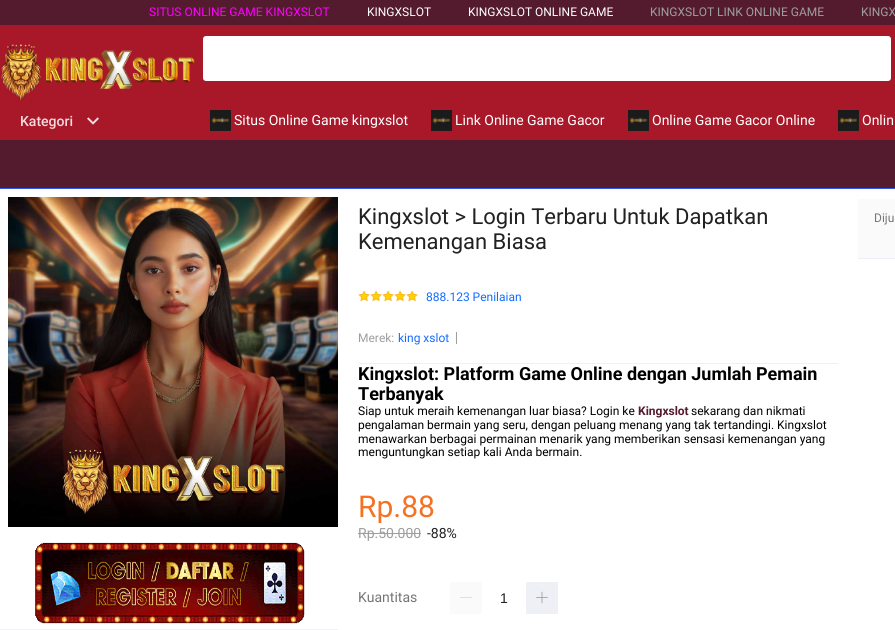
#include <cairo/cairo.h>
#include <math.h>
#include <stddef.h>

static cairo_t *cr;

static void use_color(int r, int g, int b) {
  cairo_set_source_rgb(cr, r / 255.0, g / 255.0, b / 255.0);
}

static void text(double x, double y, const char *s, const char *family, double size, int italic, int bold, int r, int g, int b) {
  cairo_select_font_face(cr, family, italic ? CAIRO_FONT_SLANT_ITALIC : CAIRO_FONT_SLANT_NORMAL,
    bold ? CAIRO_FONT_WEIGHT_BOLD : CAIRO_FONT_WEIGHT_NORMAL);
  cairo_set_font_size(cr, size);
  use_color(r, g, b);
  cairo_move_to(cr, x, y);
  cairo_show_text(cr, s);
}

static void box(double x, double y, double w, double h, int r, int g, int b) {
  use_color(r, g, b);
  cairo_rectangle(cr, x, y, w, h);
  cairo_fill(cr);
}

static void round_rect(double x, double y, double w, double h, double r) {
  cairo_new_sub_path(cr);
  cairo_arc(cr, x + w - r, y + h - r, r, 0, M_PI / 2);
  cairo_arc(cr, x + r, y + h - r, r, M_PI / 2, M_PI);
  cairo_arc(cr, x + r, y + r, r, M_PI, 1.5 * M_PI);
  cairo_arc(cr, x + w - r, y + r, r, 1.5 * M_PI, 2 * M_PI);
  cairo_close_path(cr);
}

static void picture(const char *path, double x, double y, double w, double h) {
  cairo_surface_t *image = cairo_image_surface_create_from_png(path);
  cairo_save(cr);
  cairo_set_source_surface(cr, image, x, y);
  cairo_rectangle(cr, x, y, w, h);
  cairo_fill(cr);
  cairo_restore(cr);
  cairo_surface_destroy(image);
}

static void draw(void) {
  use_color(84, 27, 46);
  cairo_paint(cr);
  box(0, 25, 895, 115, 169, 24, 41);
  picture("img_01.png", 1, 44, 194, 56);
  use_color(255, 255, 255);
  round_rect(203, 36, 688, 45, 3);
  cairo_fill(cr);
  picture("img_02.png", 87, 117, 12, 8);
  picture("img_03.png", 210, 110, 21, 21);
  picture("img_04.png", 431, 110, 21, 21);
  picture("img_04.png", 628, 110, 21, 21);
  picture("img_04.png", 838, 110, 21, 21);
  box(0, 188, 895, 1, 51, 82, 237);
  box(0, 189, 895, 441, 255, 255, 255);
  box(0, 629, 338, 1, 239, 240, 245);
  picture("img_05.png", 8, 197, 330, 330);
  picture("img_06.png", 35, 542, 270, 82);
  picture("img_07.png", 358, 290, 12, 12);
  picture("img_07.png", 370, 290, 12, 12);
  picture("img_07.png", 382, 290, 12, 12);
  picture("img_07.png", 394, 290, 12, 12);
  picture("img_07.png", 406, 290, 12, 12);
  box(358, 363, 480, 1, 239, 240, 245);
  box(456, 332, 1, 12, 158, 158, 158);
  box(358, 533, 63, 1, 158, 158, 158);
  box(450, 582, 32, 32, 250, 250, 250);
  picture("img_08.png", 460, 597, 12, 1);
  box(526, 582, 32, 32, 239, 240, 245);
  picture("img_09.png", 536, 591, 12, 13);
  box(858, 199, 37, 59, 250, 250, 250);
  box(858, 258, 37, 1, 239, 240, 245);
  text(149, 16, "SITUS ONLINE GAME KINGXSLOT", "Roboto", 12, 0, 0, 255, 0, 255);
  text(367, 16, "KINGXSLOT", "Roboto", 12, 0, 0, 255, 255, 255);
  text(468, 16, "KINGXSLOT ONLINE GAME", "Roboto", 12, 0, 0, 255, 255, 255);
  text(650, 16, "KINGXSLOT LINK ONLINE GAME", "Roboto", 12, 0, 0, 158, 158, 158);
  text(861, 16, "KINGX", "Roboto", 12, 0, 0, 158, 158, 158);
  text(20, 126, "Kategori", "Roboto Medium", 14, 0, 0, 242, 220, 223);
  text(234, 125, "Situs Online Game kingxslot", "Roboto", 14, 0, 0, 255, 255, 255);
  text(455, 125, "Link Online Game Gacor", "Roboto", 14, 0, 0, 255, 255, 255);
  text(652, 125, "Online Game Gacor Online", "Roboto", 14, 0, 0, 255, 255, 255);
  text(862, 125, "Onlin", "Roboto", 14, 0, 0, 255, 255, 255);
  text(358, 224, "Kingxslot > Login Terbaru Untuk Dapatkan", "Roboto", 22, 0, 0, 33, 33, 33);
  text(358, 249, "Kemenangan Biasa", "Roboto", 22, 0, 0, 33, 33, 33);
  text(426, 301, "888.123 Penilaian", "Roboto", 12, 0, 0, 19, 108, 255);
  text(358, 342, "Merek:", "Roboto", 12, 0, 0, 158, 158, 158);
  text(398, 342, "king xslot", "Roboto", 12, 0, 0, 19, 108, 255);
  text(358, 380, "Kingxslot: Platform Game Online dengan Jumlah Pemain", "Roboto", 18, 0, 1, 0, 0, 0);
  text(358, 400, "Terbanyak", "Roboto", 18, 0, 1, 0, 0, 0);
  text(358, 415, "Siap untuk meraih kemenangan luar biasa? Login ke", "Roboto", 12, 0, 0, 0, 0, 0);
  text(638, 415, "Kingxslot", "Roboto", 12, 0, 1, 84, 27, 46);
  text(691, 415, "sekarang dan nikmati", "Roboto", 12, 0, 0, 0, 0, 0);
  text(358, 429, "pengalaman bermain yang seru, dengan peluang menang yang tak tertandingi. Kingxslot", "Roboto", 12, 0, 0, 0, 0, 0);
  text(358, 443, "menawarkan berbagai permainan menarik yang memberikan sensasi kemenangan yang", "Roboto", 12, 0, 0, 0, 0, 0);
  text(358, 456, "menguntungkan setiap kali Anda bermain.", "Roboto", 12, 0, 0, 0, 0, 0);
  text(358, 517, "Rp.88", "Roboto", 30, 0, 0, 245, 114, 36);
  text(358, 538, "Rp.50.000", "Roboto", 14, 0, 0, 158, 158, 158);
  text(427, 538, "-88%", "Roboto", 14, 0, 0, 33, 33, 33);
  text(358, 602, "Kuantitas", "Roboto", 14, 0, 0, 117, 117, 117);
  text(500, 603, "1", "Liberation Sans", 14, 0, 0, 33, 33, 33);
  text(874, 222, "Diju", "Roboto", 12, 0, 0, 117, 117, 117);
}

int main(void) {
  cairo_surface_t *surface = cairo_image_surface_create(CAIRO_FORMAT_RGB24, 895, 630);
  cr = cairo_create(surface);
  cairo_font_options_t *options = cairo_font_options_create();
  cairo_font_options_set_hint_metrics(options, CAIRO_HINT_METRICS_OFF);
  cairo_font_options_set_hint_style(options, CAIRO_HINT_STYLE_NONE);
  cairo_set_font_options(cr, options);
  cairo_set_miter_limit(cr, 4);
  draw();
  cairo_surface_write_to_png(surface, "out.png");
  cairo_font_options_destroy(options);
  cairo_destroy(cr);
  cairo_surface_destroy(surface);
  return 0;
}
